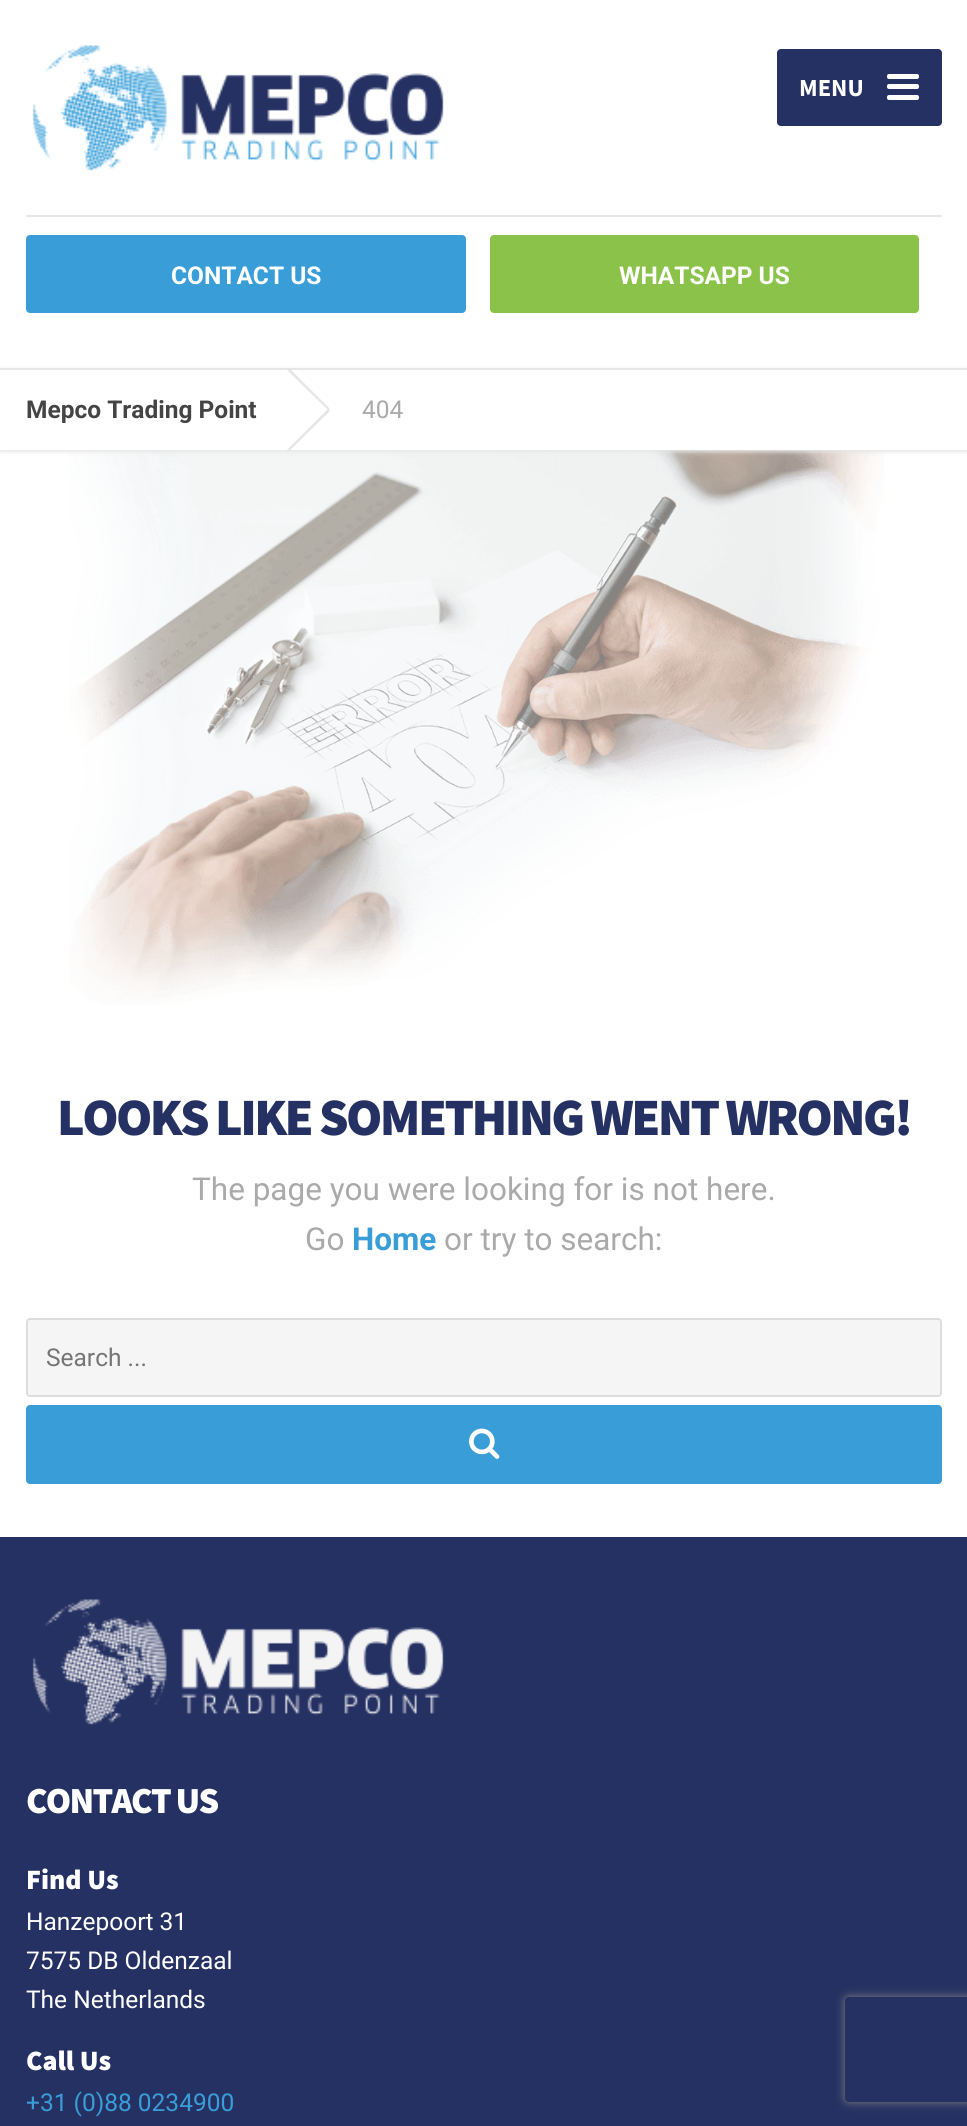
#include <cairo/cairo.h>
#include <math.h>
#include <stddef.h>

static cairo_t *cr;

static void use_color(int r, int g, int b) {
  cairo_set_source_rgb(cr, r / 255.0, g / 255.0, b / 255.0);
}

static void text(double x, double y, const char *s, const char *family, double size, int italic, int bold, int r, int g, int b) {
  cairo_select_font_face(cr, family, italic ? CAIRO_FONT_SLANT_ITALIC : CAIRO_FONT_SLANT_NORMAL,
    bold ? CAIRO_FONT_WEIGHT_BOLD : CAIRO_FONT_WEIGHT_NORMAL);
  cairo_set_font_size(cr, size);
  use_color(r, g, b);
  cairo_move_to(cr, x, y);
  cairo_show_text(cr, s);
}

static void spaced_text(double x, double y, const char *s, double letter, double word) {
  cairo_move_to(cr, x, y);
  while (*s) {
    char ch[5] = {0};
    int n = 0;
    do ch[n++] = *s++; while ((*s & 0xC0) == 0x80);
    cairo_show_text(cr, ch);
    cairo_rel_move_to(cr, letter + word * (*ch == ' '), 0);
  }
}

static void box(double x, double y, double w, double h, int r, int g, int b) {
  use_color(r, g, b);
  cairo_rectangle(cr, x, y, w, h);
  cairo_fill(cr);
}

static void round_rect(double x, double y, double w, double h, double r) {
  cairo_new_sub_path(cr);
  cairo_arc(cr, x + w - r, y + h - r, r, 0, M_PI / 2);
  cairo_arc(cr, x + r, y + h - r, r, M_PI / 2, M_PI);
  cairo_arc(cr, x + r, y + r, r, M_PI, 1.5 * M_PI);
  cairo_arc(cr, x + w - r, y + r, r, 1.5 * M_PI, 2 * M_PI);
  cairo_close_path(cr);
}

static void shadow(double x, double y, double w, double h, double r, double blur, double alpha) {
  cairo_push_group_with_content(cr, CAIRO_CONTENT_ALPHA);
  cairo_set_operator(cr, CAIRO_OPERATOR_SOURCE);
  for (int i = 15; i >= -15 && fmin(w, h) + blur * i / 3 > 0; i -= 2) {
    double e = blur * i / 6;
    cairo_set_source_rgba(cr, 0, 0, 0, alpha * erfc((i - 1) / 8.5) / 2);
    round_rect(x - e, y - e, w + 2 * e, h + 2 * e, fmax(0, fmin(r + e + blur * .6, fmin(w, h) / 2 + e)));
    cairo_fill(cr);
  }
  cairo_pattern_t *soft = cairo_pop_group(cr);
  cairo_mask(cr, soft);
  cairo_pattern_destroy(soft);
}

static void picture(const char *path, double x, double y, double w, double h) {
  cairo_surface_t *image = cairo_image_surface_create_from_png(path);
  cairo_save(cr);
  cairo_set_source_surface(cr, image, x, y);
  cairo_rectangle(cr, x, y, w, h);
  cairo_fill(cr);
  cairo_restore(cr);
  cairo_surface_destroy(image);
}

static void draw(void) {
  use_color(255, 255, 255);
  cairo_paint(cr);
  box(26, 215, 916, 2, 230, 230, 230);
  picture("img_01.png", 32, 45, 412, 126);
  use_color(38, 49, 99);
  round_rect(777, 49, 165, 77, 4);
  cairo_fill(cr);
  use_color(255, 255, 255);
  round_rect(887, 74, 32, 5, 2);
  cairo_fill(cr);
  round_rect(887, 84, 32, 5, 2);
  cairo_fill(cr);
  round_rect(887, 95, 32, 5, 2);
  cairo_fill(cr);
  use_color(57, 157, 216);
  round_rect(27, 236, 438, 76, 3);
  cairo_fill_preserve(cr);
  cairo_stroke(cr);
  use_color(139, 195, 74);
  round_rect(490, 235, 429, 78, 4);
  cairo_fill(cr);
  picture("img_02.png", 69, 450, 815, 555);
  use_color(230, 230, 230);
  shadow(0, 369, 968, 83, 0, 2, 1);
  box(0, 370, 967, 80, 255, 255, 255);
  box(0, 368, 967, 2, 230, 230, 230);
  cairo_new_path(cr);
  cairo_move_to(cr, 287, 370);
  cairo_line_to(cr, 289, 368);
  cairo_line_to(cr, 330, 409);
  cairo_line_to(cr, 328, 410);
  cairo_close_path(cr);
  cairo_fill(cr);
  cairo_new_path(cr);
  cairo_move_to(cr, 328, 409);
  cairo_line_to(cr, 330, 411);
  cairo_line_to(cr, 289, 451);
  cairo_line_to(cr, 287, 450);
  cairo_close_path(cr);
  cairo_fill(cr);
  use_color(245, 245, 245);
  round_rect(26, 1318, 916, 79, 4);
  cairo_fill(cr);
  round_rect(27, 1319, 914, 77, 3);
  cairo_set_source_rgba(cr, 0, 0, 0, 0.1);
  cairo_stroke(cr);
  use_color(57, 157, 216);
  round_rect(26, 1405, 916, 79, 4);
  cairo_fill(cr);
  picture("img_03.png", 469, 1428, 31, 31);
  box(0, 1537, 967, 589, 38, 49, 99);
  picture("img_04.png", 32, 1599, 412, 126);
  cairo_save(cr);
  cairo_set_fill_rule(cr, CAIRO_FILL_RULE_EVEN_ODD);
  cairo_new_path(cr);
  cairo_move_to(cr, 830, 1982);
  cairo_line_to(cr, 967, 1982);
  cairo_line_to(cr, 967, 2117);
  cairo_line_to(cr, 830, 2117);
  cairo_close_path(cr);
  cairo_move_to(cr, 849, 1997);
  cairo_line_to(cr, 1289, 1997);
  cairo_curve_to(cr, 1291, 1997, 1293, 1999, 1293, 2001);
  cairo_line_to(cr, 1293, 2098);
  cairo_curve_to(cr, 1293, 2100, 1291, 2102, 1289, 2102);
  cairo_line_to(cr, 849, 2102);
  cairo_curve_to(cr, 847, 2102, 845, 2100, 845, 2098);
  cairo_line_to(cr, 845, 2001);
  cairo_curve_to(cr, 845, 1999, 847, 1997, 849, 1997);
  cairo_close_path(cr);
  cairo_clip(cr);
  use_color(128, 128, 128);
  shadow(845, 1997, 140, 105, 4, 4.5, 1);
  cairo_restore(cr);
  text(799, 96, "MENU", "Source Sans Pro", 24.5, 0, 1, 255, 255, 255);
  text(171, 284, "CONTACT US", "Roboto", 24.5, 0, 1, 255, 255, 255);
  text(619, 284, "WHATSAPP US", "Roboto", 24.5, 0, 1, 255, 255, 255);
  text(26, 418, "Mepco Trading Point", "Roboto", 24.5, 0, 1, 68, 68, 68);
  text(362, 418, "404", "Roboto", 24.5, 0, 0, 170, 170, 170);
  cairo_select_font_face(cr, "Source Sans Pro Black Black", CAIRO_FONT_SLANT_NORMAL, CAIRO_FONT_WEIGHT_NORMAL);
  cairo_set_font_size(cr, 52.5);
  use_color(38, 49, 99);
  spaced_text(57, 1135, "LOOKS LIKE SOMETHING WENT WRONG!", -2.6, 0);
  text(192, 1200, "The page you were looking for is not here.", "Roboto", 31.5, 0, 0, 170, 170, 170);
  text(305, 1250, "Go", "Roboto", 31.5, 0, 0, 170, 170, 170);
  text(352, 1250, "Home", "Roboto", 31.5, 0, 1, 57, 157, 216);
  text(444, 1250, "or try to search:", "Roboto", 31.5, 0, 0, 170, 170, 170);
  text(46, 1366, "Search ...", "Roboto", 24.5, 0, 0, 117, 117, 117);
  cairo_select_font_face(cr, "Source Sans Pro Black Black", CAIRO_FONT_SLANT_NORMAL, CAIRO_FONT_WEIGHT_NORMAL);
  cairo_set_font_size(cr, 36.75);
  use_color(255, 255, 255);
  spaced_text(26, 1813, "CONTACT US", -1.75, 0);
  text(26, 1889, "Find Us", "Source Sans Pro Black Black", 28, 0, 0, 255, 255, 255);
  text(26, 1930, "Hanzepoort 31", "Roboto", 24.5, 0, 0, 255, 255, 255);
  text(26, 1969, "7575 DB Oldenzaal", "Roboto", 24.5, 0, 0, 255, 255, 255);
  text(26, 2008, "The Netherlands", "Roboto", 24.5, 0, 0, 255, 255, 255);
  text(26, 2070, "Call Us", "Source Sans Pro Black Black", 28, 0, 0, 255, 255, 255);
  text(26, 2111, "+31 (0)88 0234900", "Roboto", 24.5, 0, 0, 57, 157, 216);
}

int main(void) {
  cairo_surface_t *surface = cairo_image_surface_create(CAIRO_FORMAT_RGB24, 967, 2126);
  cr = cairo_create(surface);
  cairo_font_options_t *options = cairo_font_options_create();
  cairo_font_options_set_hint_metrics(options, CAIRO_HINT_METRICS_OFF);
  cairo_font_options_set_hint_style(options, CAIRO_HINT_STYLE_NONE);
  cairo_set_font_options(cr, options);
  cairo_set_miter_limit(cr, 4);
  draw();
  cairo_surface_write_to_png(surface, "out.png");
  cairo_font_options_destroy(options);
  cairo_destroy(cr);
  cairo_surface_destroy(surface);
  return 0;
}
